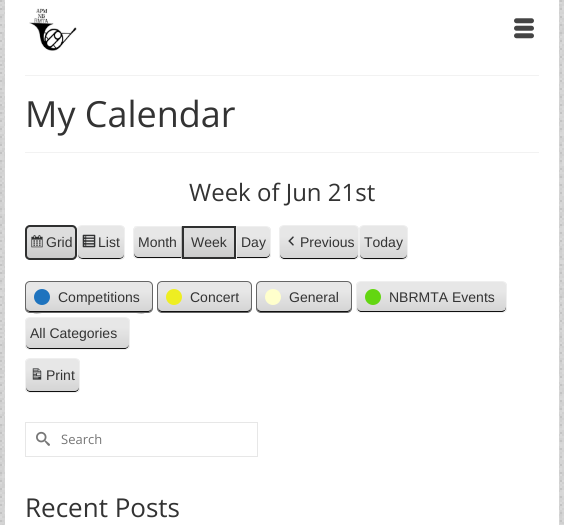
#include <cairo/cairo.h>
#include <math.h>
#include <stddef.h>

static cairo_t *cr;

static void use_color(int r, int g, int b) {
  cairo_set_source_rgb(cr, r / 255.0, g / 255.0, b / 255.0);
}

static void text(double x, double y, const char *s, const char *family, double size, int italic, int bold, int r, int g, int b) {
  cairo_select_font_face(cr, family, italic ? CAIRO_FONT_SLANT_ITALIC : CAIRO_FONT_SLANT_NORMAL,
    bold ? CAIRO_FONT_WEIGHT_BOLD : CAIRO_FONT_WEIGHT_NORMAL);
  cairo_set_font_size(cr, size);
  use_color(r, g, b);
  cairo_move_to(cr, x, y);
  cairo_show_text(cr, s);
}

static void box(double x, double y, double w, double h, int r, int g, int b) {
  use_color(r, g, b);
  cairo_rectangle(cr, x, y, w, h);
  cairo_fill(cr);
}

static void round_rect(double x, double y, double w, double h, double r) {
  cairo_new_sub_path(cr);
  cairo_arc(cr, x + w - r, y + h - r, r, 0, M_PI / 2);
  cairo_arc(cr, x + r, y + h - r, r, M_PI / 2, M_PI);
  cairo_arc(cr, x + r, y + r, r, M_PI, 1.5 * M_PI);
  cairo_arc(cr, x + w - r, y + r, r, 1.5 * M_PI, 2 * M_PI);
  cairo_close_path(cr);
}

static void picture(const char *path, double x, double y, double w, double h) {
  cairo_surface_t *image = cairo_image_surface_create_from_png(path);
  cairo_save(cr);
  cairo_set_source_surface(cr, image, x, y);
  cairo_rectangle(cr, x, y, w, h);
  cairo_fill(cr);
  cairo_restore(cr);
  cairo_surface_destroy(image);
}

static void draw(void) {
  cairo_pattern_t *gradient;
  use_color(255, 255, 255);
  cairo_paint(cr);
  picture("img_01.png", 0, 0, 564, 525);
  box(5, 0, 554, 525, 255, 255, 255);
  picture("img_02.png", 29, 8, 48, 43);
  picture("img_03.png", 514, 18, 20, 21);
  box(25, 75, 514, 1, 242, 242, 242);
  box(25, 152, 514, 1, 242, 242, 242);
  cairo_save(cr);
  round_rect(25, 225, 52, 35, 5);
  cairo_clip(cr);
  gradient = cairo_pattern_create_linear(51, 259, 51, 226);
  cairo_pattern_add_color_stop_rgba(gradient, 0, 0.796, 0.796, 0.796, 1);
  cairo_pattern_add_color_stop_rgba(gradient, 0.7, 0.867, 0.867, 0.867, 1);
  cairo_set_source(cr, gradient);
  cairo_pattern_destroy(gradient);
  cairo_rectangle(cr, 25, 226, 52, 33);
  cairo_fill(cr);
  cairo_restore(cr);
  round_rect(25.5, 225.5, 51, 34, 4.5);
  use_color(227, 227, 227);
  cairo_set_line_width(cr, 1);
  cairo_stroke(cr);
  picture("img_04.png", 31, 235, 12, 13);
  round_rect(26, 226, 50, 33, 4);
  use_color(47, 48, 48);
  cairo_set_line_width(cr, 2);
  cairo_stroke(cr);
  cairo_save(cr);
  round_rect(77, 225, 48, 35, 5);
  cairo_clip(cr);
  gradient = cairo_pattern_create_linear(101, 259, 101, 226);
  cairo_pattern_add_color_stop_rgba(gradient, 0, 0.831, 0.831, 0.831, 1);
  cairo_pattern_add_color_stop_rgba(gradient, 0.7, 0.906, 0.906, 0.906, 1);
  cairo_set_source(cr, gradient);
  cairo_pattern_destroy(gradient);
  cairo_rectangle(cr, 77, 226, 48, 33);
  cairo_fill(cr);
  cairo_restore(cr);
  use_color(15, 15, 15);
  cairo_new_path(cr);
  cairo_move_to(cr, 78, 254);
  cairo_curve_to(cr, 78, 260, 84, 259, 88, 259);
  cairo_line_to(cr, 114, 259);
  cairo_curve_to(cr, 118, 259, 124, 260, 124, 254);
  cairo_curve_to(cr, 124, 256, 122, 258, 120, 258);
  cairo_line_to(cr, 82, 258);
  cairo_curve_to(cr, 80, 258, 78, 256, 78, 254);
  cairo_close_path(cr);
  cairo_fill(cr);
  round_rect(77.5, 225.5, 47, 34, 4.5);
  use_color(239, 239, 239);
  cairo_set_line_width(cr, 1);
  cairo_stroke(cr);
  picture("img_05.png", 82, 234, 14, 14);
  cairo_save(cr);
  cairo_new_path(cr);
  cairo_move_to(cr, 138, 226);
  cairo_line_to(cr, 182, 226);
  cairo_line_to(cr, 182, 259);
  cairo_line_to(cr, 138, 259);
  cairo_curve_to(cr, 135, 259, 133, 257, 133, 254);
  cairo_line_to(cr, 133, 231);
  cairo_curve_to(cr, 133, 228, 135, 226, 138, 226);
  cairo_close_path(cr);
  cairo_clip(cr);
  gradient = cairo_pattern_create_linear(158, 258, 158, 227);
  cairo_pattern_add_color_stop_rgba(gradient, 0, 0.831, 0.831, 0.831, 1);
  cairo_pattern_add_color_stop_rgba(gradient, 0.7, 0.906, 0.906, 0.906, 1);
  cairo_set_source(cr, gradient);
  cairo_pattern_destroy(gradient);
  cairo_rectangle(cr, 133, 227, 48, 31);
  cairo_fill(cr);
  cairo_restore(cr);
  use_color(15, 15, 15);
  cairo_new_path(cr);
  cairo_move_to(cr, 134, 253);
  cairo_line_to(cr, 134, 254);
  cairo_curve_to(cr, 134, 256, 136, 258, 138, 258);
  cairo_line_to(cr, 181, 258);
  cairo_line_to(cr, 181, 257);
  cairo_line_to(cr, 138, 257);
  cairo_curve_to(cr, 136, 257, 134, 255, 134, 253);
  cairo_close_path(cr);
  cairo_fill(cr);
  use_color(239, 239, 239);
  cairo_new_path(cr);
  cairo_move_to(cr, 138, 226);
  cairo_curve_to(cr, 136, 226, 135, 226, 134, 227);
  cairo_line_to(cr, 135, 228);
  cairo_curve_to(cr, 136, 228, 137, 227, 138, 227);
  cairo_line_to(cr, 181, 227);
  cairo_line_to(cr, 182, 226);
  cairo_close_path(cr);
  cairo_fill(cr);
  use_color(187, 187, 187);
  cairo_new_path(cr);
  cairo_move_to(cr, 182, 226);
  cairo_line_to(cr, 181, 227);
  cairo_line_to(cr, 181, 258);
  cairo_line_to(cr, 182, 259);
  cairo_close_path(cr);
  cairo_fill(cr);
  use_color(239, 239, 239);
  cairo_new_path(cr);
  cairo_move_to(cr, 182, 259);
  cairo_line_to(cr, 181, 258);
  cairo_line_to(cr, 138, 258);
  cairo_curve_to(cr, 137, 258, 136, 258, 135, 257);
  cairo_line_to(cr, 134, 258);
  cairo_curve_to(cr, 135, 258, 136, 259, 138, 259);
  cairo_close_path(cr);
  cairo_fill(cr);
  cairo_new_path(cr);
  cairo_move_to(cr, 133, 231);
  cairo_line_to(cr, 133, 254);
  cairo_curve_to(cr, 133, 255.5, 133.5, 257, 134.5, 257.5);
  cairo_line_to(cr, 135, 257);
  cairo_curve_to(cr, 134.5, 256, 134, 255, 134, 254);
  cairo_line_to(cr, 134, 231);
  cairo_curve_to(cr, 134, 230, 134.5, 229, 135, 228);
  cairo_line_to(cr, 134.5, 227.5);
  cairo_curve_to(cr, 133.5, 228, 133, 229.5, 133, 231);
  cairo_close_path(cr);
  cairo_fill(cr);
  gradient = cairo_pattern_create_linear(209, 258, 209, 227);
  cairo_pattern_add_color_stop_rgba(gradient, 0, 0.796, 0.796, 0.796, 1);
  cairo_pattern_add_color_stop_rgba(gradient, 0.7, 0.867, 0.867, 0.867, 1);
  cairo_set_source(cr, gradient);
  cairo_pattern_destroy(gradient);
  cairo_rectangle(cr, 184, 228, 50, 29);
  cairo_fill(cr);
  cairo_rectangle(cr, 183, 227, 52, 31);
  use_color(47, 48, 48);
  cairo_set_line_width(cr, 2);
  cairo_stroke(cr);
  cairo_save(cr);
  cairo_new_path(cr);
  cairo_move_to(cr, 236, 226);
  cairo_line_to(cr, 266, 226);
  cairo_curve_to(cr, 269, 226, 271, 228, 271, 231);
  cairo_line_to(cr, 271, 254);
  cairo_curve_to(cr, 271, 257, 269, 259, 266, 259);
  cairo_line_to(cr, 236, 259);
  cairo_close_path(cr);
  cairo_clip(cr);
  gradient = cairo_pattern_create_linear(254, 258, 254, 227);
  cairo_pattern_add_color_stop_rgba(gradient, 0, 0.831, 0.831, 0.831, 1);
  cairo_pattern_add_color_stop_rgba(gradient, 0.7, 0.906, 0.906, 0.906, 1);
  cairo_set_source(cr, gradient);
  cairo_pattern_destroy(gradient);
  cairo_rectangle(cr, 237, 227, 34, 31);
  cairo_fill(cr);
  cairo_restore(cr);
  use_color(15, 15, 15);
  cairo_new_path(cr);
  cairo_move_to(cr, 237, 257);
  cairo_line_to(cr, 237, 258);
  cairo_line_to(cr, 266, 258);
  cairo_curve_to(cr, 268, 258, 270, 256, 270, 254);
  cairo_line_to(cr, 270, 253);
  cairo_curve_to(cr, 270, 255, 268, 257, 266, 257);
  cairo_close_path(cr);
  cairo_fill(cr);
  cairo_new_path(cr);
  cairo_move_to(cr, 236.5, 226.5);
  cairo_line_to(cr, 266, 226.5);
  cairo_curve_to(cr, 268.5, 226.5, 270.5, 228.5, 270.5, 231);
  cairo_line_to(cr, 270.5, 254);
  cairo_curve_to(cr, 270.5, 256.5, 268.5, 258.5, 266, 258.5);
  cairo_line_to(cr, 236.5, 258.5);
  cairo_close_path(cr);
  use_color(239, 239, 239);
  cairo_set_line_width(cr, 1);
  cairo_stroke(cr);
  cairo_save(cr);
  round_rect(279, 225, 80, 35, 5);
  cairo_clip(cr);
  gradient = cairo_pattern_create_linear(319, 259, 319, 226);
  cairo_pattern_add_color_stop_rgba(gradient, 0, 0.831, 0.831, 0.831, 1);
  cairo_pattern_add_color_stop_rgba(gradient, 0.7, 0.906, 0.906, 0.906, 1);
  cairo_set_source(cr, gradient);
  cairo_pattern_destroy(gradient);
  cairo_rectangle(cr, 279, 226, 80, 33);
  cairo_fill(cr);
  cairo_restore(cr);
  use_color(15, 15, 15);
  cairo_new_path(cr);
  cairo_move_to(cr, 280, 254);
  cairo_curve_to(cr, 280, 262, 291, 259, 296, 259);
  cairo_line_to(cr, 342, 259);
  cairo_curve_to(cr, 347, 259, 358, 262, 358, 254);
  cairo_curve_to(cr, 358, 256, 356, 258, 354, 258);
  cairo_line_to(cr, 284, 258);
  cairo_curve_to(cr, 282, 258, 280, 256, 280, 254);
  cairo_close_path(cr);
  cairo_fill(cr);
  round_rect(279.5, 225.5, 79, 34, 4.5);
  use_color(239, 239, 239);
  cairo_stroke(cr);
  picture("img_06.png", 288, 236, 6, 10);
  cairo_save(cr);
  round_rect(359, 225, 49, 35, 5);
  cairo_clip(cr);
  gradient = cairo_pattern_create_linear(384, 259, 384, 226);
  cairo_pattern_add_color_stop_rgba(gradient, 0, 0.831, 0.831, 0.831, 1);
  cairo_pattern_add_color_stop_rgba(gradient, 0.7, 0.906, 0.906, 0.906, 1);
  cairo_set_source(cr, gradient);
  cairo_pattern_destroy(gradient);
  cairo_rectangle(cr, 359, 226, 49, 33);
  cairo_fill(cr);
  cairo_restore(cr);
  use_color(15, 15, 15);
  cairo_new_path(cr);
  cairo_move_to(cr, 360, 254);
  cairo_curve_to(cr, 360, 260, 366, 259, 370, 259);
  cairo_line_to(cr, 396, 259);
  cairo_curve_to(cr, 401, 259, 407, 260, 407, 254);
  cairo_curve_to(cr, 407, 256, 405, 258, 403, 258);
  cairo_line_to(cr, 364, 258);
  cairo_curve_to(cr, 362, 258, 360, 256, 360, 254);
  cairo_close_path(cr);
  cairo_fill(cr);
  round_rect(359.5, 225.5, 48, 34, 4.5);
  use_color(239, 239, 239);
  cairo_stroke(cr);
  cairo_save(cr);
  round_rect(25, 281, 128, 32, 5);
  cairo_clip(cr);
  gradient = cairo_pattern_create_linear(89, 312, 89, 282);
  cairo_pattern_add_color_stop_rgba(gradient, 0, 0.831, 0.831, 0.831, 1);
  cairo_pattern_add_color_stop_rgba(gradient, 0.7, 0.906, 0.906, 0.906, 1);
  cairo_set_source(cr, gradient);
  cairo_pattern_destroy(gradient);
  cairo_rectangle(cr, 25, 282, 128, 30);
  cairo_fill(cr);
  cairo_restore(cr);
  use_color(15, 15, 15);
  cairo_new_path(cr);
  cairo_move_to(cr, 26, 307);
  cairo_curve_to(cr, 26, 317, 47, 312, 50, 312);
  cairo_line_to(cr, 128, 312);
  cairo_curve_to(cr, 131, 312, 152, 317, 152, 307);
  cairo_curve_to(cr, 152, 309, 150, 311, 148, 311);
  cairo_line_to(cr, 30, 311);
  cairo_curve_to(cr, 28, 311, 26, 309, 26, 307);
  cairo_close_path(cr);
  cairo_fill(cr);
  round_rect(25.5, 281.5, 127, 31, 4.5);
  use_color(102, 102, 102);
  cairo_stroke(cr);
  use_color(30, 115, 190);
  cairo_arc(cr, 42, 297, 8, 0, 2 * M_PI);
  cairo_fill(cr);
  cairo_save(cr);
  round_rect(157, 281, 95, 32, 5);
  cairo_clip(cr);
  gradient = cairo_pattern_create_linear(205, 312, 205, 282);
  cairo_pattern_add_color_stop_rgba(gradient, 0, 0.831, 0.831, 0.831, 1);
  cairo_pattern_add_color_stop_rgba(gradient, 0.7, 0.906, 0.906, 0.906, 1);
  cairo_set_source(cr, gradient);
  cairo_pattern_destroy(gradient);
  cairo_rectangle(cr, 157, 282, 95, 30);
  cairo_fill(cr);
  cairo_restore(cr);
  use_color(15, 15, 15);
  cairo_new_path(cr);
  cairo_move_to(cr, 158, 307);
  cairo_curve_to(cr, 158, 316, 172, 312, 176, 312);
  cairo_line_to(cr, 233, 312);
  cairo_curve_to(cr, 237, 312, 251, 316, 251, 307);
  cairo_curve_to(cr, 251, 309, 249, 311, 247, 311);
  cairo_line_to(cr, 162, 311);
  cairo_curve_to(cr, 160, 311, 158, 309, 158, 307);
  cairo_close_path(cr);
  cairo_fill(cr);
  round_rect(157.5, 281.5, 94, 31, 4.5);
  use_color(102, 102, 102);
  cairo_stroke(cr);
  use_color(238, 238, 34);
  cairo_arc(cr, 174, 297, 8, 0, 2 * M_PI);
  cairo_fill(cr);
  cairo_save(cr);
  round_rect(256, 281, 96, 32, 5);
  cairo_clip(cr);
  gradient = cairo_pattern_create_linear(304, 312, 304, 282);
  cairo_pattern_add_color_stop_rgba(gradient, 0, 0.831, 0.831, 0.831, 1);
  cairo_pattern_add_color_stop_rgba(gradient, 0.7, 0.906, 0.906, 0.906, 1);
  cairo_set_source(cr, gradient);
  cairo_pattern_destroy(gradient);
  cairo_rectangle(cr, 256, 282, 96, 30);
  cairo_fill(cr);
  cairo_restore(cr);
  use_color(15, 15, 15);
  cairo_new_path(cr);
  cairo_move_to(cr, 257, 307);
  cairo_curve_to(cr, 257, 316, 271, 312, 275, 312);
  cairo_line_to(cr, 333, 312);
  cairo_curve_to(cr, 337, 312, 351, 316, 351, 307);
  cairo_curve_to(cr, 351, 309, 349, 311, 347, 311);
  cairo_line_to(cr, 261, 311);
  cairo_curve_to(cr, 259, 311, 257, 309, 257, 307);
  cairo_close_path(cr);
  cairo_fill(cr);
  round_rect(256.5, 281.5, 95, 31, 4.5);
  use_color(102, 102, 102);
  cairo_stroke(cr);
  use_color(255, 255, 204);
  cairo_arc(cr, 273, 297, 8, 0, 2 * M_PI);
  cairo_fill(cr);
  cairo_save(cr);
  round_rect(356, 281, 151, 32, 5);
  cairo_clip(cr);
  gradient = cairo_pattern_create_linear(432, 312, 432, 282);
  cairo_pattern_add_color_stop_rgba(gradient, 0, 0.831, 0.831, 0.831, 1);
  cairo_pattern_add_color_stop_rgba(gradient, 0.7, 0.906, 0.906, 0.906, 1);
  cairo_set_source(cr, gradient);
  cairo_pattern_destroy(gradient);
  cairo_rectangle(cr, 356, 282, 151, 30);
  cairo_fill(cr);
  cairo_restore(cr);
  use_color(15, 15, 15);
  cairo_new_path(cr);
  cairo_move_to(cr, 357, 307);
  cairo_curve_to(cr, 357, 309, 358, 311, 360, 312);
  cairo_line_to(cr, 502, 312);
  cairo_curve_to(cr, 505, 312, 506, 310, 506, 307);
  cairo_line_to(cr, 505, 310);
  cairo_line_to(cr, 502, 311);
  cairo_line_to(cr, 361, 311);
  cairo_curve_to(cr, 359, 311, 357, 309, 357, 307);
  cairo_close_path(cr);
  cairo_fill(cr);
  round_rect(356.5, 281.5, 150, 31, 4.5);
  use_color(239, 239, 239);
  cairo_stroke(cr);
  use_color(99, 214, 17);
  cairo_arc(cr, 373, 297, 8, 0, 2 * M_PI);
  cairo_fill(cr);
  cairo_save(cr);
  round_rect(25, 317, 105, 33, 5);
  cairo_clip(cr);
  gradient = cairo_pattern_create_linear(78, 349, 78, 318);
  cairo_pattern_add_color_stop_rgba(gradient, 0, 0.831, 0.831, 0.831, 1);
  cairo_pattern_add_color_stop_rgba(gradient, 0.7, 0.906, 0.906, 0.906, 1);
  cairo_set_source(cr, gradient);
  cairo_pattern_destroy(gradient);
  cairo_rectangle(cr, 25, 318, 105, 31);
  cairo_fill(cr);
  cairo_restore(cr);
  use_color(15, 15, 15);
  cairo_new_path(cr);
  cairo_move_to(cr, 26, 344);
  cairo_curve_to(cr, 26, 353, 42, 349, 46, 349);
  cairo_line_to(cr, 109, 349);
  cairo_curve_to(cr, 113, 349, 129, 353, 129, 344);
  cairo_curve_to(cr, 129, 346, 127, 348, 125, 348);
  cairo_line_to(cr, 30, 348);
  cairo_curve_to(cr, 28, 348, 26, 346, 26, 344);
  cairo_close_path(cr);
  cairo_fill(cr);
  round_rect(25.5, 317.5, 104, 32, 4.5);
  use_color(239, 239, 239);
  cairo_stroke(cr);
  cairo_save(cr);
  round_rect(25, 358, 55, 35, 5);
  cairo_clip(cr);
  gradient = cairo_pattern_create_linear(53, 392, 53, 359);
  cairo_pattern_add_color_stop_rgba(gradient, 0, 0.831, 0.831, 0.831, 1);
  cairo_pattern_add_color_stop_rgba(gradient, 0.7, 0.906, 0.906, 0.906, 1);
  cairo_set_source(cr, gradient);
  cairo_pattern_destroy(gradient);
  cairo_rectangle(cr, 25, 359, 55, 33);
  cairo_fill(cr);
  cairo_restore(cr);
  use_color(15, 15, 15);
  cairo_new_path(cr);
  cairo_move_to(cr, 26, 387);
  cairo_curve_to(cr, 26, 394, 33, 392, 38, 392);
  cairo_line_to(cr, 68, 392);
  cairo_curve_to(cr, 72, 392, 79, 394, 79, 387);
  cairo_curve_to(cr, 79, 389, 77, 391, 75, 391);
  cairo_line_to(cr, 30, 391);
  cairo_curve_to(cr, 28, 391, 26, 389, 26, 387);
  cairo_close_path(cr);
  cairo_fill(cr);
  round_rect(25.5, 358.5, 54, 34, 4.5);
  use_color(239, 239, 239);
  cairo_stroke(cr);
  picture("img_07.png", 32, 368, 10, 12);
  cairo_rectangle(cr, 25.5, 422.5, 232, 34);
  use_color(231, 231, 231);
  cairo_stroke(cr);
  picture("img_08.png", 36, 431, 14, 15);
  text(25, 127, "My Calendar", "Open Sans", 36, 0, 0, 51, 51, 51);
  text(189, 201, "Week of Jun 21st", "Open Sans", 24, 0, 0, 51, 51, 51);
  text(46, 247, "Grid", "Liberation Sans", 14, 0, 0, 51, 51, 51);
  text(98, 247, "List", "Liberation Sans", 14, 0, 0, 51, 51, 51);
  text(138, 247, "Month", "Liberation Sans", 14, 0, 0, 51, 51, 51);
  text(191, 247, "Week", "Liberation Sans", 14, 0, 0, 51, 51, 51);
  text(241, 247, "Day", "Liberation Sans", 14, 0, 0, 51, 51, 51);
  text(300, 247, "Previous", "Liberation Sans", 14, 0, 0, 51, 51, 51);
  text(364, 247, "Today", "Liberation Sans", 14, 0, 0, 51, 51, 51);
  text(58, 302, "Competitions", "Liberation Sans", 14, 0, 0, 51, 51, 51);
  text(190, 302, "Concert", "Liberation Sans", 14, 0, 0, 51, 51, 51);
  text(289, 302, "General", "Liberation Sans", 14, 0, 0, 51, 51, 51);
  text(389, 302, "NBRMTA Events", "Liberation Sans", 14, 0, 0, 51, 51, 51);
  text(30, 338, "All Categories", "Liberation Sans", 14, 0, 0, 51, 51, 51);
  text(46, 380, "Print", "Liberation Sans", 14, 0, 0, 51, 51, 51);
  text(61, 444, "Search", "Open Sans", 13, 0, 0, 117, 117, 117);
  text(25, 517, "Recent Posts", "Open Sans", 26, 0, 0, 51, 51, 51);
}

int main(void) {
  cairo_surface_t *surface = cairo_image_surface_create(CAIRO_FORMAT_RGB24, 564, 525);
  cr = cairo_create(surface);
  cairo_font_options_t *options = cairo_font_options_create();
  cairo_font_options_set_hint_metrics(options, CAIRO_HINT_METRICS_OFF);
  cairo_font_options_set_hint_style(options, CAIRO_HINT_STYLE_NONE);
  cairo_set_font_options(cr, options);
  cairo_set_miter_limit(cr, 4);
  draw();
  cairo_surface_write_to_png(surface, "out.png");
  cairo_font_options_destroy(options);
  cairo_destroy(cr);
  cairo_surface_destroy(surface);
  return 0;
}
